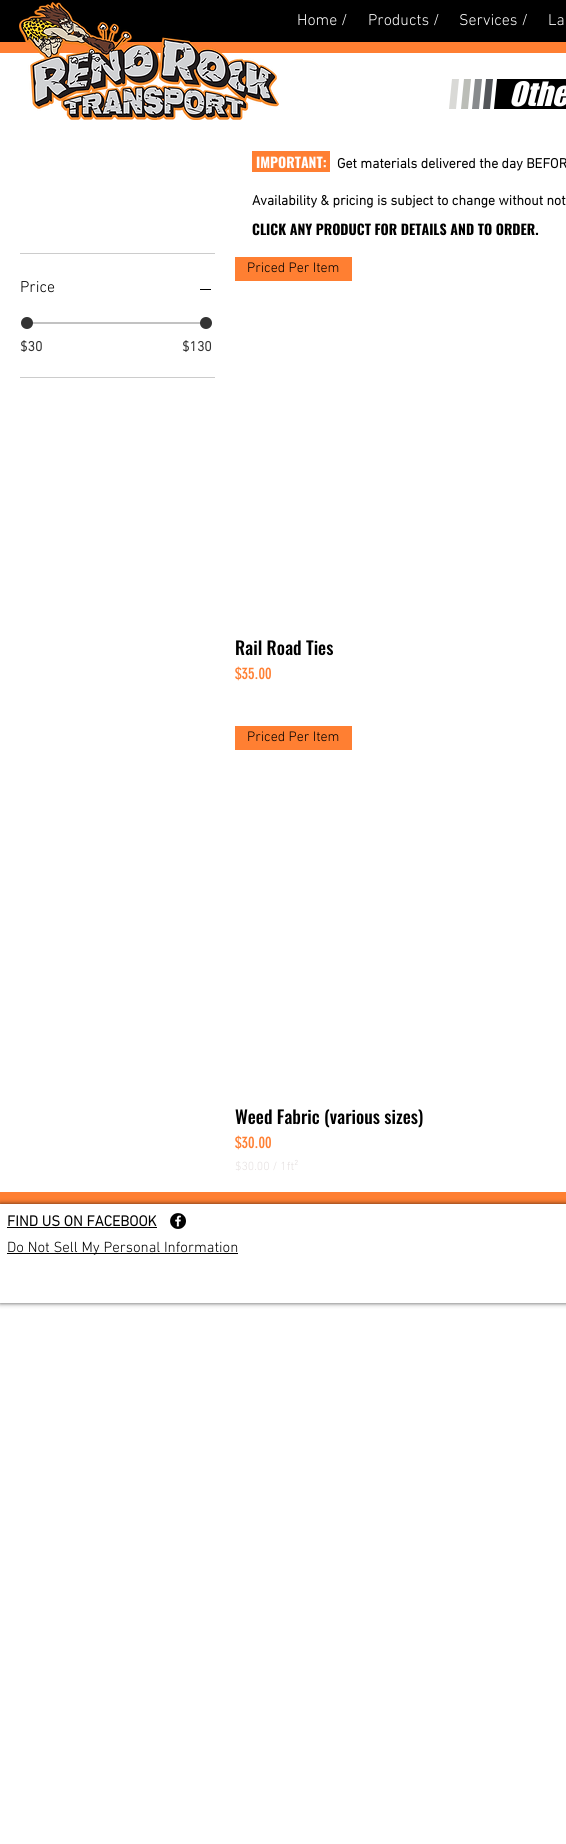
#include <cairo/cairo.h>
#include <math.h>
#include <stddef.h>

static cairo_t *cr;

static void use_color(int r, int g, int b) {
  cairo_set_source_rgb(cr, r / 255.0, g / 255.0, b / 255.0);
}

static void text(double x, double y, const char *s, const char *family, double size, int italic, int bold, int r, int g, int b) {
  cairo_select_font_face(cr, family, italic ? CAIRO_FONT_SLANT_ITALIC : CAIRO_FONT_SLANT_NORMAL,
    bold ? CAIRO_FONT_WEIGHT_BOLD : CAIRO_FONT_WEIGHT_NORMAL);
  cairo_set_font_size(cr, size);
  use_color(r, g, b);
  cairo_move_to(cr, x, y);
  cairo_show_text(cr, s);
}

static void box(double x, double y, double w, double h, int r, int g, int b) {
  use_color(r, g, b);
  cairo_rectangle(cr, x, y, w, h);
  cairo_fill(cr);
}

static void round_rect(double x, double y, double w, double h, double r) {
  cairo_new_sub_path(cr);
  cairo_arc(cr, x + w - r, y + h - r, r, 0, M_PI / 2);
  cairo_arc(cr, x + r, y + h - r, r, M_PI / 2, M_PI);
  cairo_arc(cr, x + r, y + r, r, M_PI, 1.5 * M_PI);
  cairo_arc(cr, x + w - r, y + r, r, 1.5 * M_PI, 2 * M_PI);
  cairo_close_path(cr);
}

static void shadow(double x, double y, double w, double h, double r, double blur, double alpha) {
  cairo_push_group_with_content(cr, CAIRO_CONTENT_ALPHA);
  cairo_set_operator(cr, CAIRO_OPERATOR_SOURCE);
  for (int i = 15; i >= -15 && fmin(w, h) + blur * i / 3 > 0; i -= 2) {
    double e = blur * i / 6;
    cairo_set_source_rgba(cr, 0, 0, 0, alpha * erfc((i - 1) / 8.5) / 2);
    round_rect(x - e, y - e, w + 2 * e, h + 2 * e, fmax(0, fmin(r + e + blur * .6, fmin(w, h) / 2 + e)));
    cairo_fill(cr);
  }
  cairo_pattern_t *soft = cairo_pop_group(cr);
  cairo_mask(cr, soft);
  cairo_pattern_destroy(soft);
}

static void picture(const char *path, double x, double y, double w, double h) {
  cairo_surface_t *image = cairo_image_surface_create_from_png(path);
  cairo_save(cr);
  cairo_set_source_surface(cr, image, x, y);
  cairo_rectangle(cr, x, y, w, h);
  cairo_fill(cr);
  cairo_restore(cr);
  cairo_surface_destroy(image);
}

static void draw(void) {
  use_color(255, 255, 255);
  cairo_paint(cr);
  box(0, 42, 566, 11, 255, 127, 50);
  box(0, 0, 566, 42, 0, 0, 0);
  picture("img_01.png", 19, 2, 260, 118);
  use_color(217, 217, 214);
  cairo_new_path(cr);
  cairo_move_to(cr, 456, 109);
  cairo_line_to(cr, 449, 109);
  cairo_line_to(cr, 452, 79);
  cairo_line_to(cr, 459, 79);
  cairo_close_path(cr);
  cairo_fill(cr);
  use_color(187, 189, 183);
  cairo_new_path(cr);
  cairo_move_to(cr, 468, 109);
  cairo_line_to(cr, 461, 109);
  cairo_line_to(cr, 464, 79);
  cairo_line_to(cr, 471, 79);
  cairo_close_path(cr);
  cairo_fill(cr);
  use_color(136, 139, 141);
  cairo_new_path(cr);
  cairo_move_to(cr, 479, 109);
  cairo_line_to(cr, 472, 109);
  cairo_line_to(cr, 475, 79);
  cairo_line_to(cr, 482, 79);
  cairo_close_path(cr);
  cairo_fill(cr);
  use_color(83, 86, 90);
  cairo_new_path(cr);
  cairo_move_to(cr, 490, 109);
  cairo_line_to(cr, 483, 109);
  cairo_line_to(cr, 486, 79);
  cairo_line_to(cr, 493, 79);
  cairo_close_path(cr);
  cairo_fill(cr);
  box(501, 79, 65, 30, 0, 0, 0);
  cairo_new_path(cr);
  cairo_move_to(cr, 501, 109);
  cairo_line_to(cr, 494, 109);
  cairo_line_to(cr, 497, 79);
  cairo_line_to(cr, 504, 79);
  cairo_close_path(cr);
  cairo_fill(cr);
  box(252, 151, 78, 21, 255, 127, 50);
  box(20, 253, 195, 1, 204, 204, 204);
  box(20, 377, 195, 1, 204, 204, 204);
  box(200, 289, 11, 1, 0, 0, 0);
  box(26, 322, 179, 2, 194, 194, 194);
  use_color(51, 51, 51);
  cairo_arc(cr, 27, 323, 6, 0, 2 * M_PI);
  cairo_fill(cr);
  cairo_arc(cr, 206, 323, 6, 0, 2 * M_PI);
  cairo_fill(cr);
  box(235, 257, 117, 24, 255, 127, 50);
  box(235, 726, 117, 24, 255, 127, 50);
  box(0, 1192, 566, 12, 255, 127, 50);
  cairo_save(cr);
  cairo_set_fill_rule(cr, CAIRO_FILL_RULE_EVEN_ODD);
  cairo_new_path(cr);
  cairo_move_to(cr, 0, 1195);
  cairo_line_to(cr, 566, 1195);
  cairo_line_to(cr, 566, 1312);
  cairo_line_to(cr, 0, 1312);
  cairo_close_path(cr);
  cairo_move_to(cr, 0, 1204);
  cairo_line_to(cr, 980, 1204);
  cairo_line_to(cr, 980, 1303);
  cairo_line_to(cr, 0, 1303);
  cairo_close_path(cr);
  cairo_clip(cr);
  use_color(0, 0, 0);
  shadow(0, 1204, 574, 99, 0, 2.5, 0.7);
  cairo_restore(cr);
  box(7, 1227, 150, 1, 0, 0, 0);
  picture("img_02.png", 170, 1213, 16, 16);
  box(7, 1253, 231, 1, 0, 0, 0);
  text(297, 25, "Home /", "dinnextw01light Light", 16, 0, 0, 255, 255, 255);
  text(368, 25, "Products /", "dinnextw01light Light", 16, 0, 0, 255, 255, 255);
  text(459, 25, "Services /", "dinnextw01light Light", 16, 0, 0, 255, 255, 255);
  text(548, 25, "La", "dinnextw01light Light", 16, 0, 0, 255, 255, 255);
  text(509, 106, "Othe", "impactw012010", 31, 1, 0, 255, 255, 255);
  text(256, 168, "IMPORTANT:", "Oswald", 14, 0, 1, 255, 255, 255);
  text(337, 168, "Get materials delivered the day BEFOR", "dinnextw01light", 14, 0, 1, 0, 0, 0);
  text(252, 205, "Availability & pricing is subject to change without not", "dinnextw01light", 14, 0, 1, 0, 0, 0);
  text(252, 235, "CLICK ANY PRODUCT FOR DETAILS AND TO ORDER.", "Oswald", 14, 0, 1, 0, 0, 0);
  text(20, 292, "Price", "dinnextw01light Light", 16, 0, 0, 0, 0, 0);
  text(20, 351, "$30", "dinnextw01light", 14, 0, 1, 51, 51, 51);
  text(182, 351, "$130", "dinnextw01light", 14, 0, 1, 51, 51, 51);
  text(247, 272, "Priced Per Item", "dinnextw01light Light", 14, 0, 0, 0, 0, 0);
  text(235, 655, "Rail Road Ties", "Oswald Medium", 18, 0, 0, 0, 0, 0);
  text(235, 679, "$35.00", "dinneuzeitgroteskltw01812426", 16, 0, 0, 255, 127, 50);
  text(247, 741, "Priced Per Item", "dinnextw01light Light", 14, 0, 0, 0, 0, 0);
  text(235, 1124, "Weed Fabric (various sizes)", "Oswald Medium", 18, 0, 0, 0, 0, 0);
  text(235, 1148, "$30.00", "dinneuzeitgroteskltw01812426", 16, 0, 0, 255, 127, 50);
  text(235, 1170, "$30.00 / 1ft²", "dinnextw01light Light", 12, 0, 0, 229, 224, 224);
  text(7, 1226, "FIND US ON FACEBOOK", "dinnextw01light", 15, 0, 1, 0, 0, 0);
  text(7, 1252, "Do Not Sell My Personal Information", "dinnextw01light Light", 15, 0, 0, 0, 0, 0);
}

int main(void) {
  cairo_surface_t *surface = cairo_image_surface_create(CAIRO_FORMAT_RGB24, 566, 1844);
  cr = cairo_create(surface);
  cairo_font_options_t *options = cairo_font_options_create();
  cairo_font_options_set_hint_metrics(options, CAIRO_HINT_METRICS_OFF);
  cairo_font_options_set_hint_style(options, CAIRO_HINT_STYLE_NONE);
  cairo_set_font_options(cr, options);
  cairo_set_miter_limit(cr, 4);
  draw();
  cairo_surface_write_to_png(surface, "out.png");
  cairo_font_options_destroy(options);
  cairo_destroy(cr);
  cairo_surface_destroy(surface);
  return 0;
}
